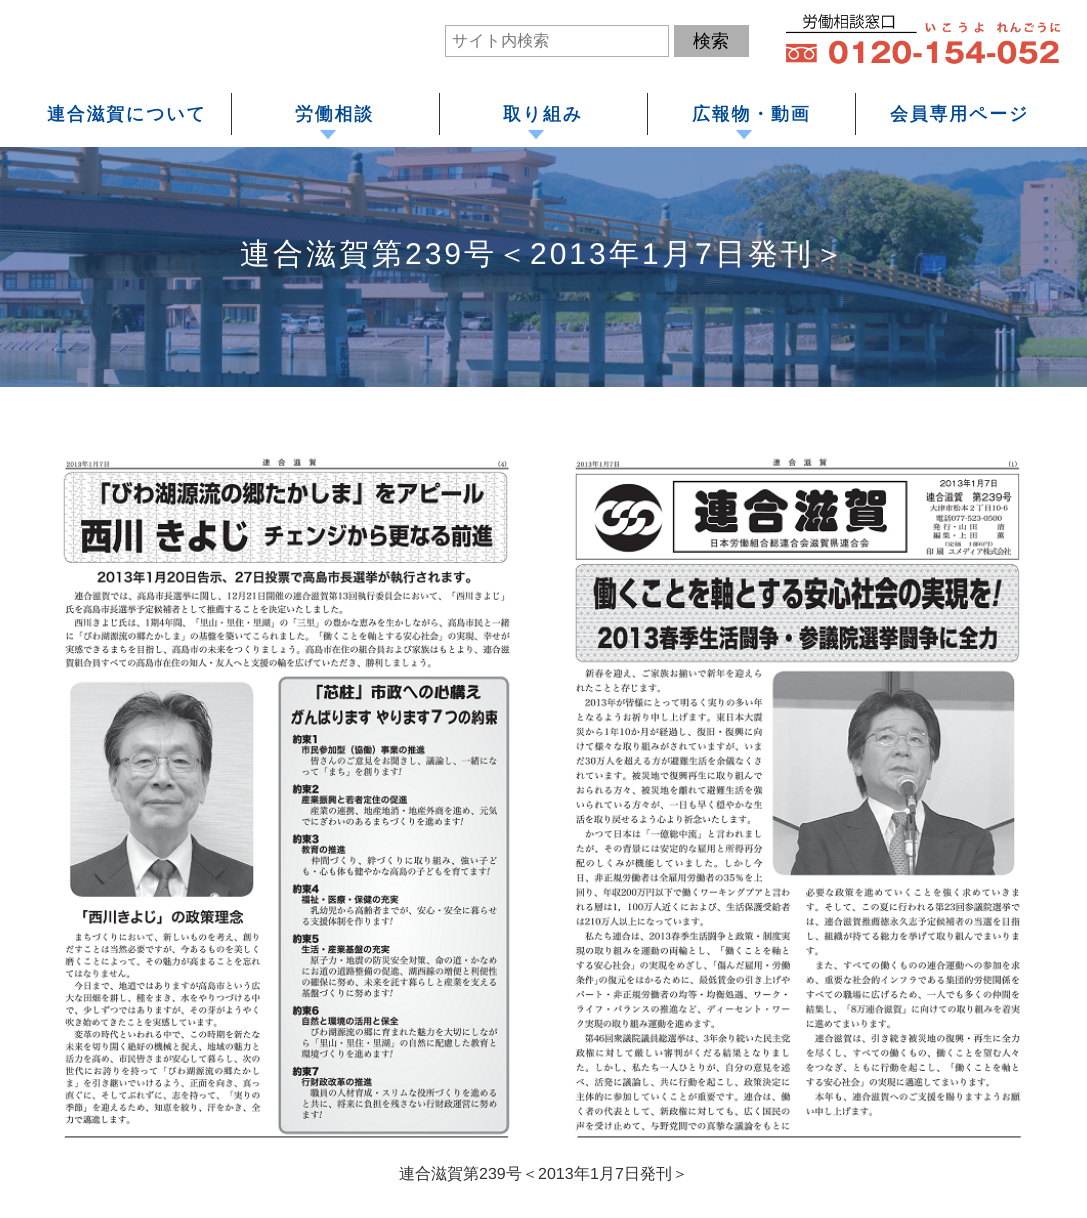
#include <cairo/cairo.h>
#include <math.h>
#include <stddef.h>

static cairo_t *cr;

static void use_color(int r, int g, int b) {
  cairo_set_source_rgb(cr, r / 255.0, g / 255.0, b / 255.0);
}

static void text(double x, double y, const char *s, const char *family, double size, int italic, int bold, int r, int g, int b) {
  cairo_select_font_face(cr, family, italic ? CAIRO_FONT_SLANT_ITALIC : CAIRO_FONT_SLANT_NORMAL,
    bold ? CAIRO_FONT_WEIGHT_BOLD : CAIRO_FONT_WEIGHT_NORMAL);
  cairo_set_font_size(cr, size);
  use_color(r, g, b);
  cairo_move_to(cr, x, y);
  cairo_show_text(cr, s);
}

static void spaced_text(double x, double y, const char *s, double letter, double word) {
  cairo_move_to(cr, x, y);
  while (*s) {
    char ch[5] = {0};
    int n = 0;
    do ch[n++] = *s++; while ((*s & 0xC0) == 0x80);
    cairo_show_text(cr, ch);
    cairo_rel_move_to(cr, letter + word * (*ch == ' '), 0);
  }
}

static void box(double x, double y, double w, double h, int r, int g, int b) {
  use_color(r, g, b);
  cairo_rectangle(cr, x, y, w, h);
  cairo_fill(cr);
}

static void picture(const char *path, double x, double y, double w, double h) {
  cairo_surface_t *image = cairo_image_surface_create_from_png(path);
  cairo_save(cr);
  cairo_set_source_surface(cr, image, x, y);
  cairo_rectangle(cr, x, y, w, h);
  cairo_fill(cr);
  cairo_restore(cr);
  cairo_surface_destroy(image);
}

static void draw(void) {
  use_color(255, 255, 255);
  cairo_paint(cr);
  cairo_rectangle(cr, 445.5, 25.5, 223, 31);
  use_color(175, 175, 175);
  cairo_set_line_width(cr, 1);
  cairo_stroke(cr);
  box(674, 25, 75, 32, 175, 175, 175);
  picture("img_01.png", 786, 14, 274, 50);
  box(231, 93, 1, 42, 51, 51, 51);
  box(439, 93, 1, 42, 51, 51, 51);
  picture("img_02.png", 319, 129, 18, 11);
  box(647, 93, 1, 42, 51, 51, 51);
  picture("img_03.png", 527, 129, 18, 11);
  box(855, 93, 1, 42, 51, 51, 51);
  picture("img_02.png", 735, 129, 18, 11);
  picture("img_04.png", 0, 147, 1087, 240);
  picture("img_05.png", 63, 458, 959, 680);
  text(452, 46, "サイト内検索", "WenQuanYi Zen Hei Medium", 16, 0, 0, 117, 117, 117);
  text(693, 47, "検索", "WenQuanYi Zen Hei Medium", 18, 0, 0, 0, 0, 0);
  cairo_select_font_face(cr, "WenQuanYi Zen Hei", CAIRO_FONT_SLANT_NORMAL, CAIRO_FONT_WEIGHT_BOLD);
  use_color(0, 73, 148);
  spaced_text(47, 120, "連合滋賀について", 1.75, 0);
  spaced_text(295, 120, "労働相談", 1.75, 0);
  spaced_text(503, 120, "取り組み", 1.75, 0);
  spaced_text(692, 120, "広報物・動画", 1.75, 0);
  spaced_text(890, 120, "会員専用ページ", 1.75, 0);
  cairo_select_font_face(cr, "WenQuanYi Zen Hei Medium", CAIRO_FONT_SLANT_NORMAL, CAIRO_FONT_WEIGHT_NORMAL);
  cairo_set_font_size(cr, 30);
  use_color(255, 255, 255);
  spaced_text(240, 264, "連合滋賀第", 3, 0);
  cairo_select_font_face(cr, "Liberation Sans", CAIRO_FONT_SLANT_NORMAL, CAIRO_FONT_WEIGHT_NORMAL);
  spaced_text(405, 264, "239", 3, 0);
  cairo_select_font_face(cr, "WenQuanYi Zen Hei Medium", CAIRO_FONT_SLANT_NORMAL, CAIRO_FONT_WEIGHT_NORMAL);
  spaced_text(464, 264, "号＜", 3, 0);
  cairo_select_font_face(cr, "Liberation Sans", CAIRO_FONT_SLANT_NORMAL, CAIRO_FONT_WEIGHT_NORMAL);
  spaced_text(530, 264, "2013", 3, 0);
  cairo_select_font_face(cr, "WenQuanYi Zen Hei Medium", CAIRO_FONT_SLANT_NORMAL, CAIRO_FONT_WEIGHT_NORMAL);
  spaced_text(609, 264, "年", 3, 0);
  cairo_select_font_face(cr, "Liberation Sans", CAIRO_FONT_SLANT_NORMAL, CAIRO_FONT_WEIGHT_NORMAL);
  spaced_text(642, 264, "1", 3, 0);
  cairo_select_font_face(cr, "WenQuanYi Zen Hei Medium", CAIRO_FONT_SLANT_NORMAL, CAIRO_FONT_WEIGHT_NORMAL);
  spaced_text(662, 264, "月", 3, 0);
  cairo_select_font_face(cr, "Liberation Sans", CAIRO_FONT_SLANT_NORMAL, CAIRO_FONT_WEIGHT_NORMAL);
  spaced_text(695, 264, "7", 3, 0);
  cairo_select_font_face(cr, "WenQuanYi Zen Hei Medium", CAIRO_FONT_SLANT_NORMAL, CAIRO_FONT_WEIGHT_NORMAL);
  spaced_text(715, 264, "日発刊＞", 3, 0);
  text(399, 1179, "連合滋賀第", "WenQuanYi Zen Hei Medium", 16, 0, 0, 51, 51, 51);
  text(479, 1179, "239", "Liberation Sans", 16, 0, 0, 51, 51, 51);
  text(506, 1179, "号＜", "WenQuanYi Zen Hei Medium", 16, 0, 0, 51, 51, 51);
  text(538, 1179, "2013", "Liberation Sans", 16, 0, 0, 51, 51, 51);
  text(574, 1179, "年", "WenQuanYi Zen Hei Medium", 16, 0, 0, 51, 51, 51);
  text(590, 1179, "1", "Liberation Sans", 16, 0, 0, 51, 51, 51);
  text(599, 1179, "月", "WenQuanYi Zen Hei Medium", 16, 0, 0, 51, 51, 51);
  text(615, 1179, "7", "Liberation Sans", 16, 0, 0, 51, 51, 51);
  text(624, 1179, "日発刊＞", "WenQuanYi Zen Hei Medium", 16, 0, 0, 51, 51, 51);
}

int main(void) {
  cairo_surface_t *surface = cairo_image_surface_create(CAIRO_FORMAT_RGB24, 1087, 1218);
  cr = cairo_create(surface);
  cairo_font_options_t *options = cairo_font_options_create();
  cairo_font_options_set_hint_metrics(options, CAIRO_HINT_METRICS_OFF);
  cairo_font_options_set_hint_style(options, CAIRO_HINT_STYLE_NONE);
  cairo_set_font_options(cr, options);
  cairo_set_miter_limit(cr, 4);
  draw();
  cairo_surface_write_to_png(surface, "out.png");
  cairo_font_options_destroy(options);
  cairo_destroy(cr);
  cairo_surface_destroy(surface);
  return 0;
}
